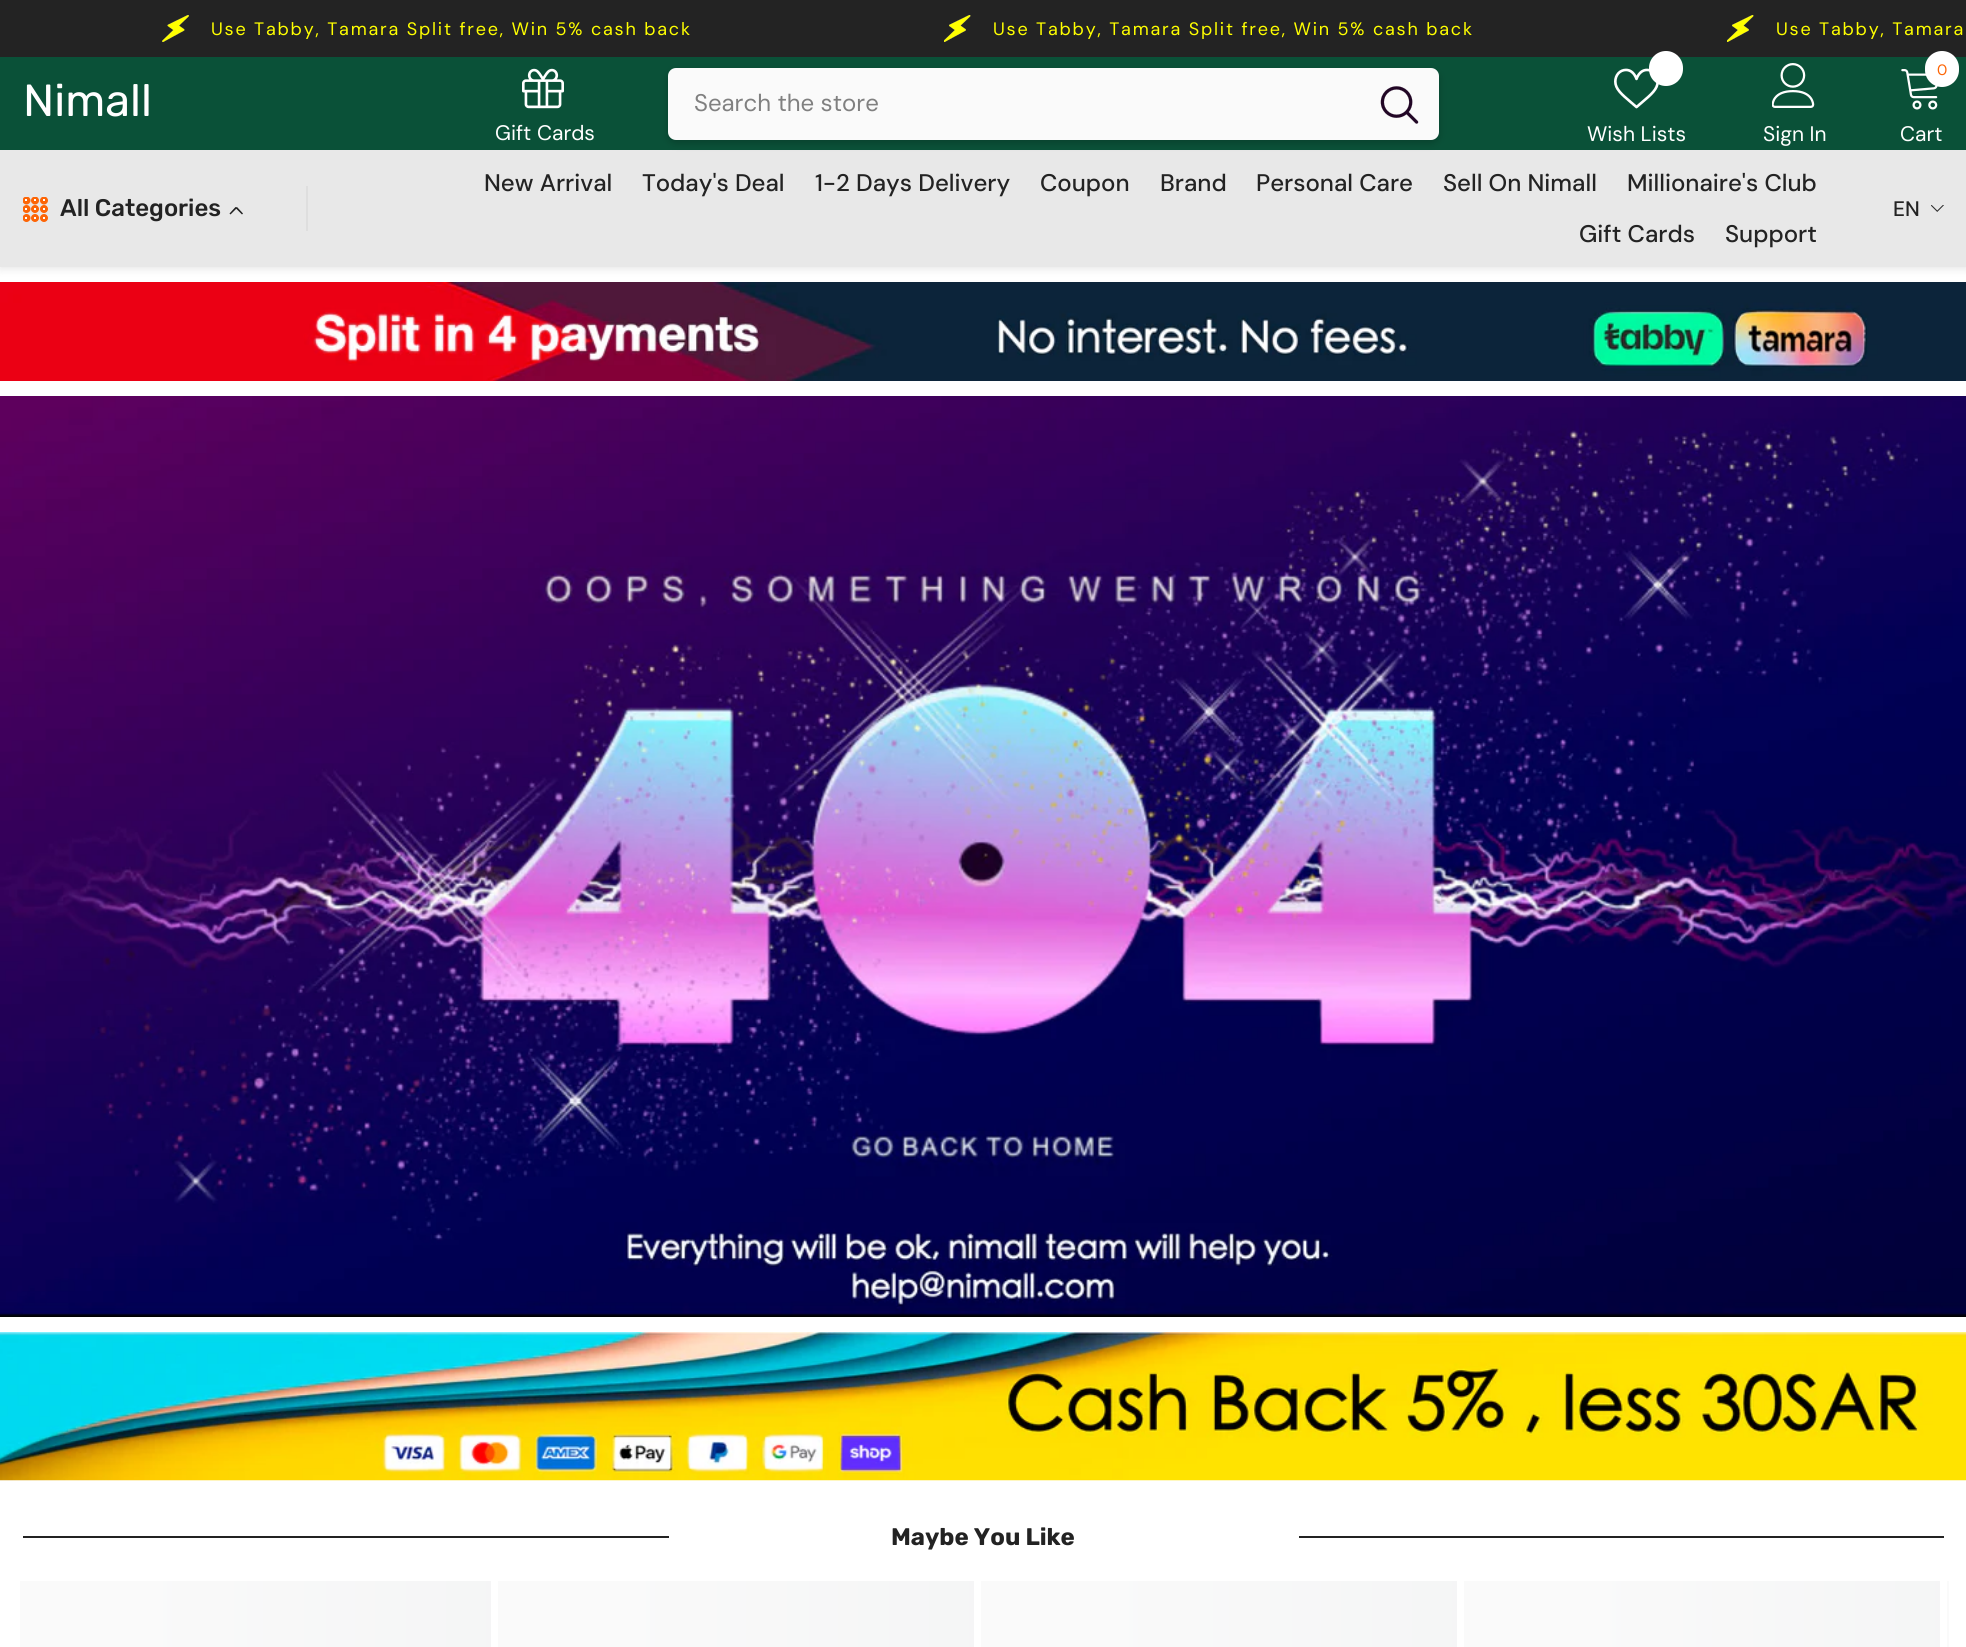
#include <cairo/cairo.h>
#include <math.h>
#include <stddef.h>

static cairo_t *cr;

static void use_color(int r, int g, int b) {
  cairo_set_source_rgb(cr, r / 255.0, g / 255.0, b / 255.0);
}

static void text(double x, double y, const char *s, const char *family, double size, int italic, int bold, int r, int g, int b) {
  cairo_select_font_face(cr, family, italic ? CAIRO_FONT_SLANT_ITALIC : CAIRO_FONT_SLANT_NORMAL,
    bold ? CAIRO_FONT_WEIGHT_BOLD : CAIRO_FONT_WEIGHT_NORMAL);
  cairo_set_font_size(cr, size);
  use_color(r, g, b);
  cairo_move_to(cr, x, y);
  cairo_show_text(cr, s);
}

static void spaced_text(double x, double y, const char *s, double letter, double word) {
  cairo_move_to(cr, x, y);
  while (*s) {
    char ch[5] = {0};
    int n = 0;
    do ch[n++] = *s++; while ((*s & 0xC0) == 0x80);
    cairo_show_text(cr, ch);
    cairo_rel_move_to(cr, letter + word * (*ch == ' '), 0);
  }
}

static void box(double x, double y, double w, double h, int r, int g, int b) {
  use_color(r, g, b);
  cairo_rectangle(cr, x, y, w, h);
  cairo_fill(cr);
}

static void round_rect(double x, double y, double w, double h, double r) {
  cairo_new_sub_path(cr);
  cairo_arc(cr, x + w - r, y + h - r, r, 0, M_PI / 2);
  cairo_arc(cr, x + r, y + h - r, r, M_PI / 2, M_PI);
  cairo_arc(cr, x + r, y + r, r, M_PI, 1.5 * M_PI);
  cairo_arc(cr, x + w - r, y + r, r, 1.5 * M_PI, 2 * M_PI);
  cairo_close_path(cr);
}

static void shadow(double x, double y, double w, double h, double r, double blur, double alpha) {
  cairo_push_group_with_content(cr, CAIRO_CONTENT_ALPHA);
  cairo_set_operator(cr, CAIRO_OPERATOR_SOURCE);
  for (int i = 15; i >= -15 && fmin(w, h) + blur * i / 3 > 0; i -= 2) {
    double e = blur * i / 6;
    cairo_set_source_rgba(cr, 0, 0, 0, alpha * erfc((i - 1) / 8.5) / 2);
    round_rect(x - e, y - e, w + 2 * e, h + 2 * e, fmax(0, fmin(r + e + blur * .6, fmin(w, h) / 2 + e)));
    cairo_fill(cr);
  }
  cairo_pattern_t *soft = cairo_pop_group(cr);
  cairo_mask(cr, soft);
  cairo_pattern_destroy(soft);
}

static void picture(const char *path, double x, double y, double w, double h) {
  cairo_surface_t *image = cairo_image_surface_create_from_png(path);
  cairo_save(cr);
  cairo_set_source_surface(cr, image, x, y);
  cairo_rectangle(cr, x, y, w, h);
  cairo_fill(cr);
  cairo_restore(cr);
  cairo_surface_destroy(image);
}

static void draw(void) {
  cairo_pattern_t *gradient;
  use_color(255, 255, 255);
  cairo_paint(cr);
  box(0, 0, 1966, 57, 35, 35, 35);
  picture("img_01.png", 162, 15, 27, 27);
  picture("img_02.png", 944, 15, 27, 27);
  picture("img_02.png", 1727, 15, 27, 27);
  picture("img_10.png", 0, 282, 1966, 99);
  use_color(0, 0, 0);
  shadow(0, 152, 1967, 117, 0, 4.5, 0.1);
  box(0, 57, 1966, 93, 10, 81, 56);
  box(0, 150, 1966, 117, 232, 232, 232);
  use_color(0, 0, 0);
  shadow(668, 71, 771, 72, 8, 4, 0.2);
  use_color(250, 250, 250);
  round_rect(668, 68, 771, 72, 8);
  cairo_fill(cr);
  picture("img_03.png", 1380, 86, 39, 38);
  picture("img_04.png", 1901, 69, 37, 41);
  use_color(255, 255, 255);
  round_rect(1925, 51, 34, 36, 17);
  cairo_fill(cr);
  picture("img_05.png", 522, 68, 42, 41);
  picture("img_06.png", 1614, 68, 45, 41);
  round_rect(1649, 51, 34, 35, 17);
  cairo_fill(cr);
  picture("img_07.png", 1772, 63, 43, 45);
  picture("img_08.png", 23, 197, 25, 25);
  use_color(32, 32, 32);
  cairo_new_path(cr);
  cairo_move_to(cr, 229.5, 213.5);
  cairo_line_to(cr, 235.5, 207);
  cairo_line_to(cr, 237, 208);
  cairo_line_to(cr, 230.5, 214.5);
  cairo_close_path(cr);
  cairo_fill(cr);
  cairo_new_path(cr);
  cairo_move_to(cr, 242, 214.5);
  cairo_line_to(cr, 235.5, 208);
  cairo_line_to(cr, 237, 207);
  cairo_line_to(cr, 243, 213.5);
  cairo_close_path(cr);
  cairo_fill(cr);
  box(306, 186, 2, 45, 222, 222, 222);
  picture("img_09.png", 1931, 205, 13, 7);
  picture("img_11.png", 0, 396, 1966, 921);
  picture("img_12.png", 0, 1332, 1966, 149);
  box(23, 1536, 1921, 2, 35, 35, 35);
  box(669, 1536, 630, 2, 255, 255, 255);
  gradient = cairo_pattern_create_linear(15, 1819, 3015, 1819);
  cairo_pattern_add_color_stop_rgba(gradient, 0.04, 0.98, 0.98, 0.98, 1);
  cairo_pattern_add_color_stop_rgba(gradient, 0.25, 0.945, 0.949, 0.953, 1);
  cairo_pattern_add_color_stop_rgba(gradient, 0.36, 0.98, 0.98, 0.98, 1);
  cairo_set_source(cr, gradient);
  cairo_pattern_destroy(gradient);
  cairo_rectangle(cr, 20, 1581, 471, 66);
  cairo_fill(cr);
  gradient = cairo_pattern_create_linear(498, 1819, 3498, 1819);
  cairo_pattern_add_color_stop_rgba(gradient, 0.04, 0.98, 0.98, 0.98, 1);
  cairo_pattern_add_color_stop_rgba(gradient, 0.25, 0.945, 0.949, 0.953, 1);
  cairo_pattern_add_color_stop_rgba(gradient, 0.36, 0.98, 0.98, 0.98, 1);
  cairo_set_source(cr, gradient);
  cairo_pattern_destroy(gradient);
  cairo_rectangle(cr, 498, 1581, 476, 66);
  cairo_fill(cr);
  gradient = cairo_pattern_create_linear(981, 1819, 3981, 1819);
  cairo_pattern_add_color_stop_rgba(gradient, 0.04, 0.98, 0.98, 0.98, 1);
  cairo_pattern_add_color_stop_rgba(gradient, 0.25, 0.945, 0.949, 0.953, 1);
  cairo_pattern_add_color_stop_rgba(gradient, 0.36, 0.98, 0.98, 0.98, 1);
  cairo_set_source(cr, gradient);
  cairo_pattern_destroy(gradient);
  cairo_rectangle(cr, 981, 1581, 476, 66);
  cairo_fill(cr);
  gradient = cairo_pattern_create_linear(1464, 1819, 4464, 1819);
  cairo_pattern_add_color_stop_rgba(gradient, 0.04, 0.98, 0.98, 0.98, 1);
  cairo_pattern_add_color_stop_rgba(gradient, 0.25, 0.945, 0.949, 0.953, 1);
  cairo_pattern_add_color_stop_rgba(gradient, 0.36, 0.98, 0.98, 0.98, 1);
  cairo_set_source(cr, gradient);
  cairo_pattern_destroy(gradient);
  cairo_rectangle(cr, 1464, 1581, 476, 66);
  cairo_fill(cr);
  gradient = cairo_pattern_create_linear(1947, 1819, 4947, 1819);
  cairo_pattern_add_color_stop_rgba(gradient, 0.04, 0.98, 0.98, 0.98, 1);
  cairo_pattern_add_color_stop_rgba(gradient, 0.25, 0.945, 0.949, 0.953, 1);
  cairo_pattern_add_color_stop_rgba(gradient, 0.36, 0.98, 0.98, 0.98, 1);
  cairo_set_source(cr, gradient);
  cairo_pattern_destroy(gradient);
  cairo_rectangle(cr, 1947, 1581, 2, 66);
  cairo_fill(cr);
  cairo_select_font_face(cr, "DM Sans", CAIRO_FONT_SLANT_NORMAL, CAIRO_FONT_WEIGHT_NORMAL);
  cairo_set_font_size(cr, 18);
  use_color(255, 255, 0);
  spaced_text(211, 35, "Use Tabby, Tamara Split free, Win 5% cash back", 1.8, 0);
  spaced_text(993, 35, "Use Tabby, Tamara Split free, Win 5% cash back", 1.8, 0);
  spaced_text(1776, 35, "Use Tabby, Tamara", 1.8, 0);
  text(23, 116, "Nimall", "Rubik", 45, 0, 0, 255, 255, 255);
  text(694, 111, "Search the store", "DM Sans", 24, 0, 0, 128, 128, 128);
  text(1937, 75, "0", "DM Sans", 15, 0, 0, 253, 101, 6);
  text(1900, 141, "Cart", "DM Sans", 21, 0, 0, 255, 255, 255);
  text(495, 140, "Gift Cards", "DM Sans", 21, 0, 0, 255, 255, 255);
  text(1587, 141, "Wish Lists", "DM Sans", 21, 0, 0, 255, 255, 255);
  text(1763, 141, "Sign In", "DM Sans", 21, 0, 0, 255, 255, 255);
  text(60, 216, "All Categories", "Rubik Medium", 24, 0, 0, 35, 35, 35);
  text(484, 191, "New Arrival", "DM Sans Medium", 24, 0, 0, 35, 35, 35);
  text(642, 191, "Today's Deal", "DM Sans Medium", 24, 0, 0, 35, 35, 35);
  text(815, 191, "1-2 Days Delivery", "DM Sans Medium", 24, 0, 0, 35, 35, 35);
  text(1040, 191, "Coupon", "DM Sans Medium", 24, 0, 0, 35, 35, 35);
  text(1160, 191, "Brand", "DM Sans Medium", 24, 0, 0, 35, 35, 35);
  text(1256, 191, "Personal Care", "DM Sans Medium", 24, 0, 0, 35, 35, 35);
  text(1443, 191, "Sell On Nimall", "DM Sans Medium", 24, 0, 0, 35, 35, 35);
  text(1627, 191, "Millionaire's Club", "DM Sans Medium", 24, 0, 0, 35, 35, 35);
  text(1579, 242, "Gift Cards", "DM Sans Medium", 24, 0, 0, 35, 35, 35);
  text(1725, 242, "Support", "DM Sans Medium", 24, 0, 0, 35, 35, 35);
  text(1893, 216, "EN", "DM Sans Medium", 21, 0, 0, 35, 35, 35);
  text(891, 1545, "Maybe You Like", "Rubik", 24, 0, 1, 35, 35, 35);
}

int main(void) {
  cairo_surface_t *surface = cairo_image_surface_create(CAIRO_FORMAT_RGB24, 1966, 1647);
  cr = cairo_create(surface);
  cairo_font_options_t *options = cairo_font_options_create();
  cairo_font_options_set_hint_metrics(options, CAIRO_HINT_METRICS_OFF);
  cairo_font_options_set_hint_style(options, CAIRO_HINT_STYLE_NONE);
  cairo_set_font_options(cr, options);
  cairo_set_miter_limit(cr, 4);
  draw();
  cairo_surface_write_to_png(surface, "out.png");
  cairo_font_options_destroy(options);
  cairo_destroy(cr);
  cairo_surface_destroy(surface);
  return 0;
}
